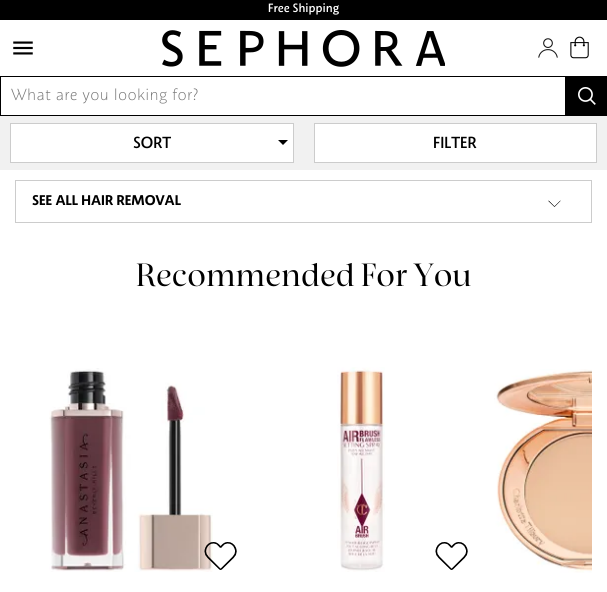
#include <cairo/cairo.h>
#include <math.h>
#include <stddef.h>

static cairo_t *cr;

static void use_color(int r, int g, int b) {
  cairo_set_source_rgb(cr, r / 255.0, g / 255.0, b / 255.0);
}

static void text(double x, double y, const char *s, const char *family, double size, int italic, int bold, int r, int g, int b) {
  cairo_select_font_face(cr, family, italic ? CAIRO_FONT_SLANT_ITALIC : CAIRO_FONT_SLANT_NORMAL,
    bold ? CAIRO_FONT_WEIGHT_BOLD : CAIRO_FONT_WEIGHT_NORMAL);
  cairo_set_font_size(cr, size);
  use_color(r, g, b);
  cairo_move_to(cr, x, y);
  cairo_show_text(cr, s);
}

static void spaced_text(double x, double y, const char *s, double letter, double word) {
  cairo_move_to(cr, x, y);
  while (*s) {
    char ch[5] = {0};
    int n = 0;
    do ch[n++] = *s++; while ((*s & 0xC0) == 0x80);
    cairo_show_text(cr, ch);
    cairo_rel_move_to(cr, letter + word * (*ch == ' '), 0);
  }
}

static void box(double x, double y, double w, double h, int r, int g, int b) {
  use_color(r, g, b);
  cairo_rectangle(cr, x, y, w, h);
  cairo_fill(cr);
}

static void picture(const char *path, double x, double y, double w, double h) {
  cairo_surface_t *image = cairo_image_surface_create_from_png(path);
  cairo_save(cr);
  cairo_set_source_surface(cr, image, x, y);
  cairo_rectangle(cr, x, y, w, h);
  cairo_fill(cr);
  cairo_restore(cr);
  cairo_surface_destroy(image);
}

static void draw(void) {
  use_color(255, 255, 255);
  cairo_paint(cr);
  box(0, 0, 607, 20, 0, 0, 0);
  picture("img_01.png", 13, 41, 20, 14);
  picture("img_02.png", 162, 30, 283, 37);
  picture("img_03.png", 538, 38, 20, 20);
  picture("img_04.png", 570, 36, 19, 23);
  cairo_rectangle(cr, 0.5, 76.5, 565, 39);
  cairo_set_line_width(cr, 1);
  cairo_stroke(cr);
  box(566, 76, 41, 40, 0, 0, 0);
  picture("img_05.png", 578, 87, 18, 18);
  cairo_rectangle(cr, 15.5, 180.5, 576, 42);
  use_color(204, 204, 204);
  cairo_stroke(cr);
  picture("img_06.png", 548, 200, 13, 7);
  box(0, 116, 607, 54, 241, 241, 241);
  box(11, 124, 282, 38, 255, 255, 255);
  use_color(0, 0, 0);
  cairo_new_path(cr);
  cairo_move_to(cr, 278, 140);
  cairo_line_to(cr, 283, 145);
  cairo_line_to(cr, 288, 140);
  cairo_close_path(cr);
  cairo_fill(cr);
  cairo_rectangle(cr, 10.5, 123.5, 283, 39);
  use_color(204, 204, 204);
  cairo_stroke(cr);
  use_color(255, 255, 255);
  cairo_rectangle(cr, 314.5, 123.5, 282, 39);
  cairo_fill_preserve(cr);
  use_color(204, 204, 204);
  cairo_stroke(cr);
  picture("img_07.png", 49, 368, 164, 204);
  picture("img_08.png", 204, 542, 33, 28);
  picture("img_09.png", 337, 367, 48, 205);
  picture("img_10.png", 435, 542, 33, 28);
  picture("img_11.png", 494, 369, 98, 204);
  text(268, 12, "Free Shipping", "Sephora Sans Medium", 12, 0, 0, 255, 255, 255);
  cairo_select_font_face(cr, "Sephora Sans Light", CAIRO_FONT_SLANT_NORMAL, CAIRO_FONT_WEIGHT_NORMAL);
  cairo_set_font_size(cr, 16);
  use_color(117, 117, 117);
  spaced_text(11, 100, "What are you looking for?", 0.3, 0);
  text(32, 205, "SEE ALL HAIR REMOVAL", "Sephora Sans", 14, 0, 1, 0, 0, 0);
  text(133, 148, "SORT", "Sephora Sans Medium", 16, 0, 0, 0, 0, 0);
  text(433, 148, "FILTER", "Sephora Sans Medium", 16, 0, 0, 0, 0, 0);
  text(136, 286, "Recommended For You", "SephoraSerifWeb", 32, 0, 0, 0, 0, 0);
}

int main(void) {
  cairo_surface_t *surface = cairo_image_surface_create(CAIRO_FORMAT_RGB24, 607, 592);
  cr = cairo_create(surface);
  cairo_font_options_t *options = cairo_font_options_create();
  cairo_font_options_set_hint_metrics(options, CAIRO_HINT_METRICS_OFF);
  cairo_font_options_set_hint_style(options, CAIRO_HINT_STYLE_NONE);
  cairo_set_font_options(cr, options);
  cairo_set_miter_limit(cr, 4);
  draw();
  cairo_surface_write_to_png(surface, "out.png");
  cairo_font_options_destroy(options);
  cairo_destroy(cr);
  cairo_surface_destroy(surface);
  return 0;
}
